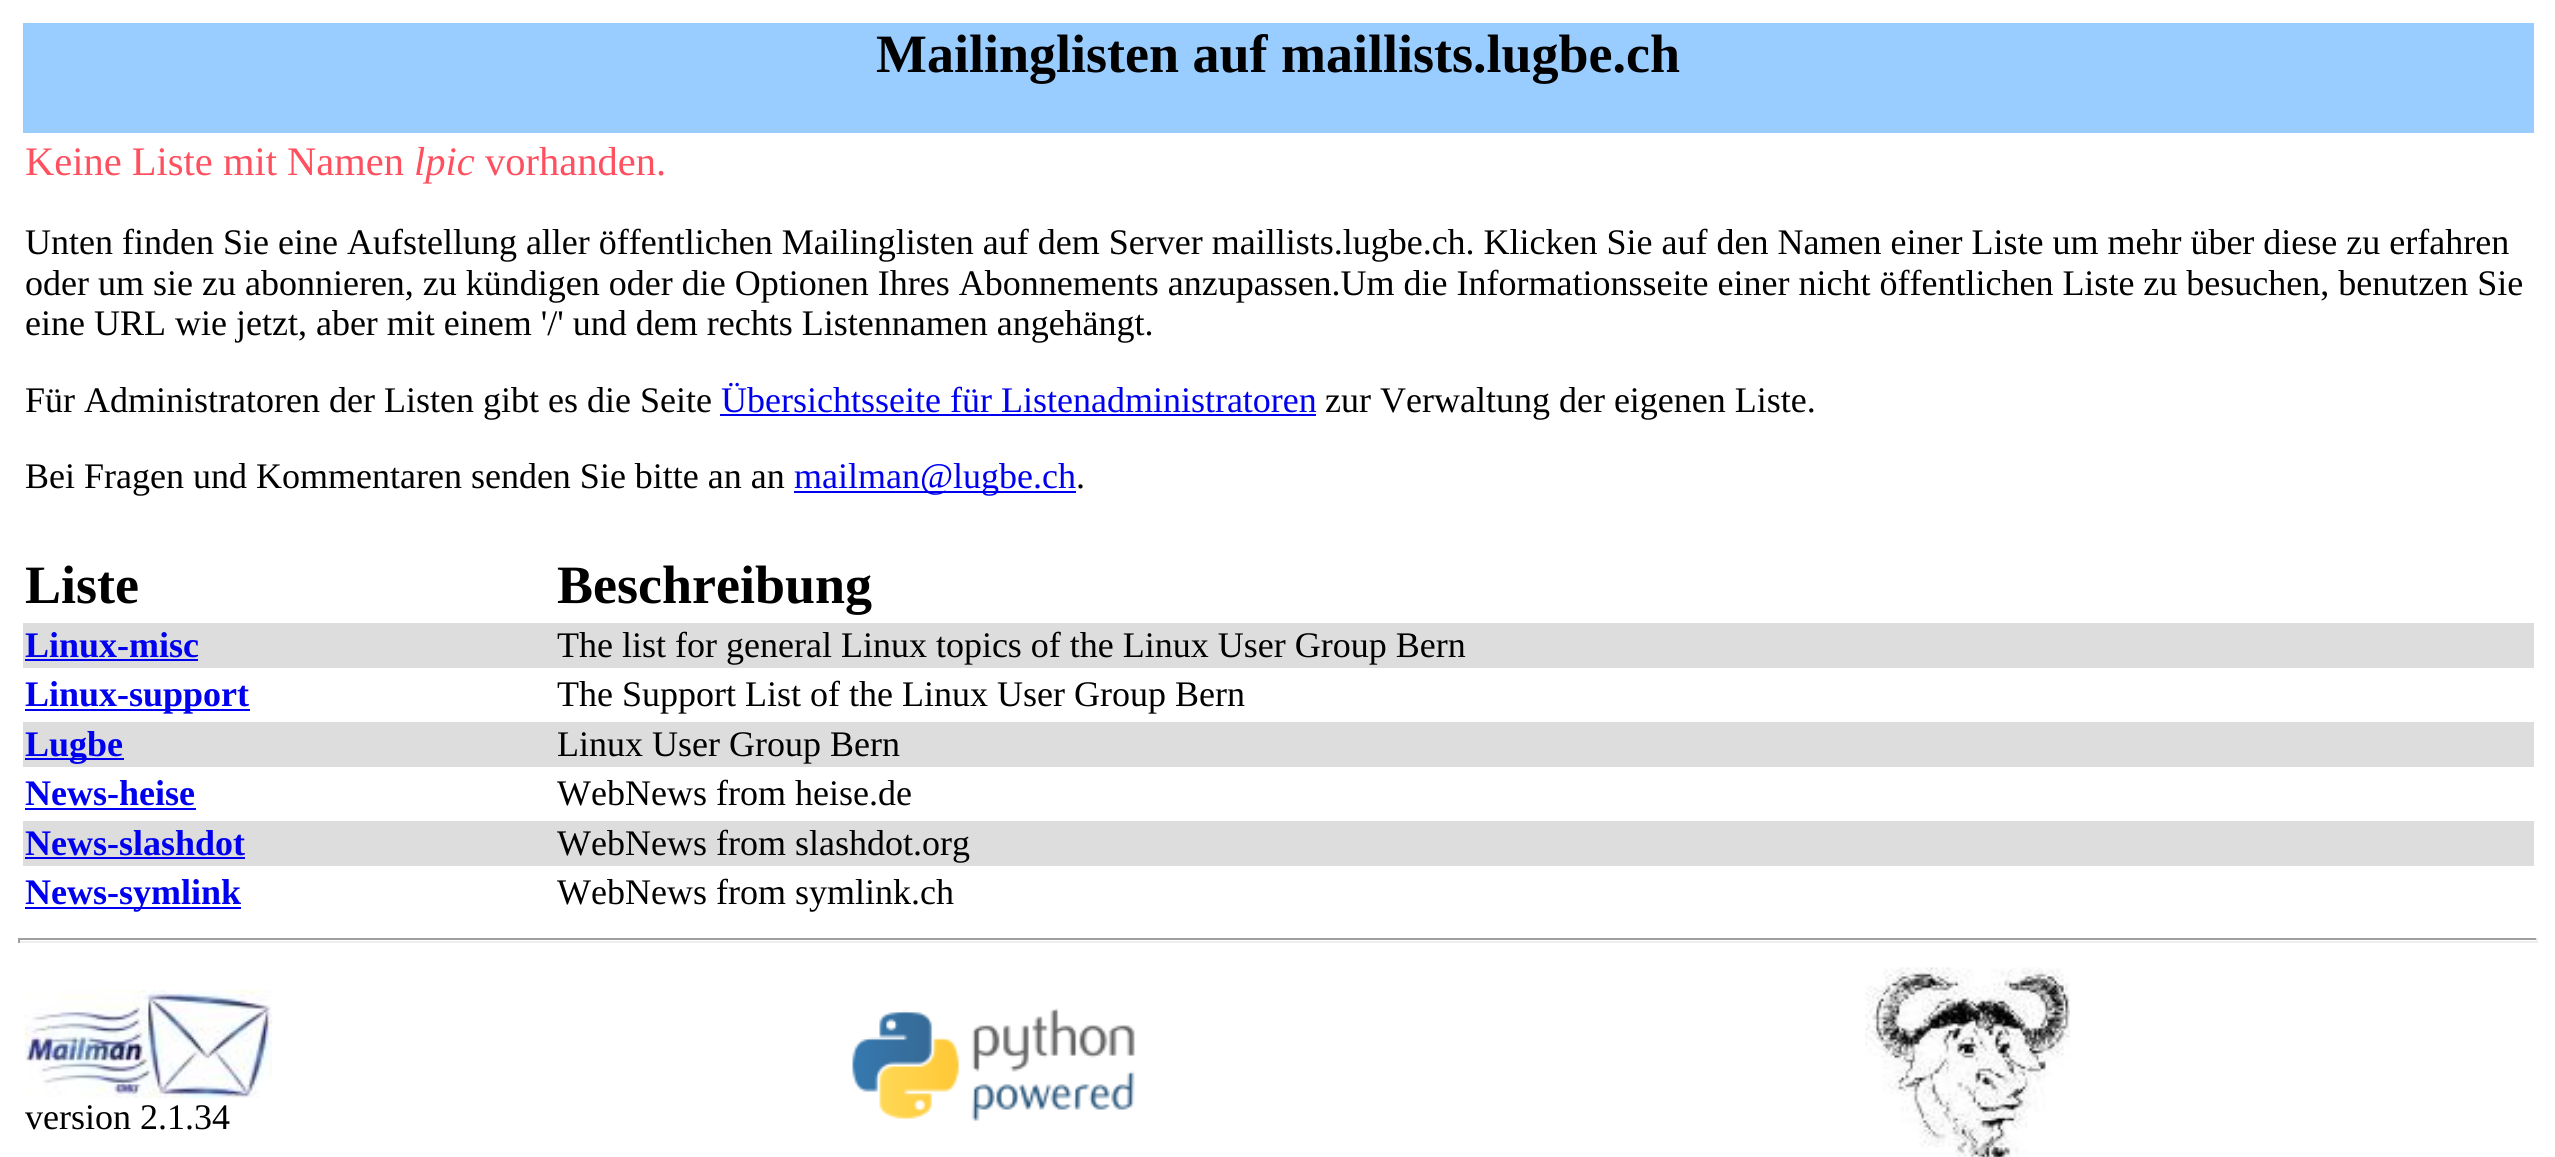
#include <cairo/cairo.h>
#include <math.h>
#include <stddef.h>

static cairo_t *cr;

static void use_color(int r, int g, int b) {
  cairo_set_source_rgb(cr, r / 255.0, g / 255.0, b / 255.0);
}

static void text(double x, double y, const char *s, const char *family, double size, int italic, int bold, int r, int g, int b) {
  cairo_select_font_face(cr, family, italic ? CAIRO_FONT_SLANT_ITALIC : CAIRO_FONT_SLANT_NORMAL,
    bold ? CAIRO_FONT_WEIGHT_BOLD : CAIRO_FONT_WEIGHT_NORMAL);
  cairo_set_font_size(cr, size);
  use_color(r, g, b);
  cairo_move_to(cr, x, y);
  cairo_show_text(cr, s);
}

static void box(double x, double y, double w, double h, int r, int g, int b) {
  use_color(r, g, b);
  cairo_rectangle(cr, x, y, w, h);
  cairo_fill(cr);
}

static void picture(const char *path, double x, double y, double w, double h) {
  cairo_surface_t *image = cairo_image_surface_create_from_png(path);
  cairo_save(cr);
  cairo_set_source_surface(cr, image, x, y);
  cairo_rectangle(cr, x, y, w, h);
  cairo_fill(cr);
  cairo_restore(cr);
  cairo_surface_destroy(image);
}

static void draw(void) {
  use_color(255, 255, 255);
  cairo_paint(cr);
  box(23, 23, 2511, 110, 153, 204, 255);
  box(720, 414, 596, 2, 0, 0, 238);
  box(794, 491, 282, 2, 0, 0, 238);
  box(23, 623, 2511, 45, 221, 221, 221);
  box(25, 659, 173, 2, 0, 0, 238);
  box(25, 709, 225, 2, 0, 0, 238);
  box(23, 722, 2511, 45, 221, 221, 221);
  box(25, 758, 99, 2, 0, 0, 238);
  box(25, 808, 171, 2, 0, 0, 238);
  box(23, 821, 2511, 45, 221, 221, 221);
  box(25, 857, 220, 2, 0, 0, 238);
  box(25, 907, 216, 2, 0, 0, 238);
  box(18, 938, 2520, 2, 159, 159, 159);
  box(2536, 938, 2, 5, 238, 238, 238);
  box(18, 941, 2520, 2, 238, 238, 238);
  box(18, 938, 2, 5, 159, 159, 159);
  picture("img_01.png", 24, 990, 249, 108);
  picture("img_02.png", 852, 1007, 283, 115);
  picture("img_03.png", 1865, 967, 205, 190);
  text(876, 72, "Mailinglisten auf maillists.lugbe.ch", "Liberation Serif", 54, 0, 1, 0, 0, 0);
  text(25, 175, "Keine Liste mit Namen", "Liberation Serif", 40.5, 0, 0, 255, 80, 96);
  text(414, 175, "lpic", "Liberation Serif", 40.5, 1, 0, 255, 80, 96);
  text(485, 175, "vorhanden.", "Liberation Serif", 40.5, 0, 0, 255, 80, 96);
  text(25, 254, "Unten finden Sie eine Aufstellung aller öffentlichen Mailinglisten auf dem Server maillists.lugbe.ch. Klicken Sie auf den Namen einer Liste um mehr über diese zu erfahren", "Liberation Serif", 36, 0, 0, 0, 0, 0);
  text(25, 295, "oder um sie zu abonnieren, zu kündigen oder die Optionen Ihres Abonnements anzupassen.Um die Informationsseite einer nicht öffentlichen Liste zu besuchen, benutzen Sie", "Liberation Serif", 36, 0, 0, 0, 0, 0);
  text(25, 335, "eine URL wie jetzt, aber mit einem '/' und dem rechts Listennamen angehängt.", "Liberation Serif", 36, 0, 0, 0, 0, 0);
  text(25, 412, "Für Administratoren der Listen gibt es die Seite", "Liberation Serif", 36, 0, 0, 0, 0, 0);
  text(721, 412, "Übersichtsseite für Listenadministratoren", "Liberation Serif", 36, 0, 0, 0, 0, 238);
  text(1325, 412, "zur Verwaltung der eigenen Liste.", "Liberation Serif", 36, 0, 0, 0, 0, 0);
  text(25, 488, "Bei Fragen und Kommentaren senden Sie bitte an an", "Liberation Serif", 36, 0, 0, 0, 0, 0);
  text(794, 488, "mailman@lugbe.ch", "Liberation Serif", 36, 0, 0, 0, 0, 238);
  text(1076, 488, ".", "Liberation Serif", 36, 0, 0, 0, 0, 0);
  text(25, 603, "Liste", "Liberation Serif", 54, 0, 1, 0, 0, 0);
  text(557, 603, "Beschreibung", "Liberation Serif", 54, 0, 1, 0, 0, 0);
  text(25, 657, "Linux-misc", "Liberation Serif", 36, 0, 1, 0, 0, 238);
  text(557, 657, "The list for general Linux topics of the Linux User Group Bern", "Liberation Serif", 36, 0, 0, 0, 0, 0);
  text(25, 706, "Linux-support", "Liberation Serif", 36, 0, 1, 0, 0, 238);
  text(557, 706, "The Support List of the Linux User Group Bern", "Liberation Serif", 36, 0, 0, 0, 0, 0);
  text(25, 756, "Lugbe", "Liberation Serif", 36, 0, 1, 0, 0, 238);
  text(557, 756, "Linux User Group Bern", "Liberation Serif", 36, 0, 0, 0, 0, 0);
  text(25, 805, "News-heise", "Liberation Serif", 36, 0, 1, 0, 0, 238);
  text(557, 805, "WebNews from heise.de", "Liberation Serif", 36, 0, 0, 0, 0, 0);
  text(25, 855, "News-slashdot", "Liberation Serif", 36, 0, 1, 0, 0, 238);
  text(557, 855, "WebNews from slashdot.org", "Liberation Serif", 36, 0, 0, 0, 0, 0);
  text(25, 904, "News-symlink", "Liberation Serif", 36, 0, 1, 0, 0, 238);
  text(557, 904, "WebNews from symlink.ch", "Liberation Serif", 36, 0, 0, 0, 0, 0);
  text(25, 1129, "version 2.1.34", "Liberation Serif", 36, 0, 0, 0, 0, 0);
}

int main(void) {
  cairo_surface_t *surface = cairo_image_surface_create(CAIRO_FORMAT_RGB24, 2555, 1157);
  cr = cairo_create(surface);
  cairo_font_options_t *options = cairo_font_options_create();
  cairo_font_options_set_hint_metrics(options, CAIRO_HINT_METRICS_OFF);
  cairo_font_options_set_hint_style(options, CAIRO_HINT_STYLE_NONE);
  cairo_set_font_options(cr, options);
  cairo_set_miter_limit(cr, 4);
  draw();
  cairo_surface_write_to_png(surface, "out.png");
  cairo_font_options_destroy(options);
  cairo_destroy(cr);
  cairo_surface_destroy(surface);
  return 0;
}
